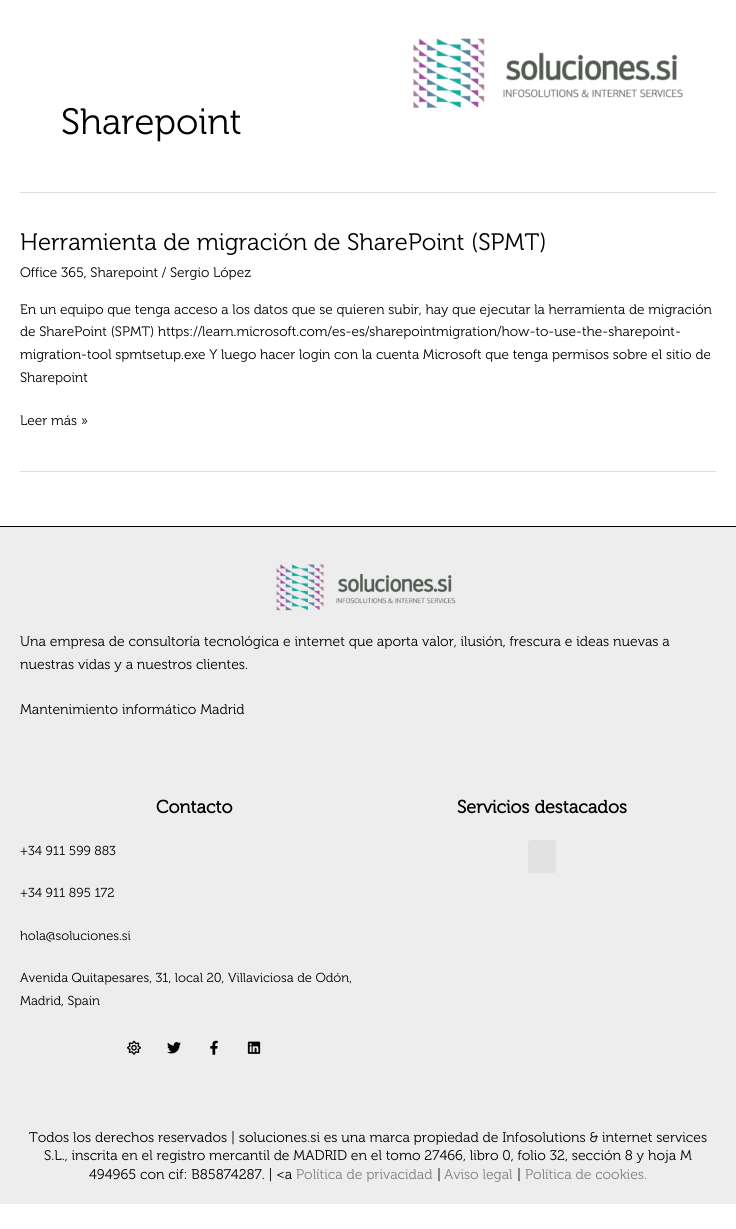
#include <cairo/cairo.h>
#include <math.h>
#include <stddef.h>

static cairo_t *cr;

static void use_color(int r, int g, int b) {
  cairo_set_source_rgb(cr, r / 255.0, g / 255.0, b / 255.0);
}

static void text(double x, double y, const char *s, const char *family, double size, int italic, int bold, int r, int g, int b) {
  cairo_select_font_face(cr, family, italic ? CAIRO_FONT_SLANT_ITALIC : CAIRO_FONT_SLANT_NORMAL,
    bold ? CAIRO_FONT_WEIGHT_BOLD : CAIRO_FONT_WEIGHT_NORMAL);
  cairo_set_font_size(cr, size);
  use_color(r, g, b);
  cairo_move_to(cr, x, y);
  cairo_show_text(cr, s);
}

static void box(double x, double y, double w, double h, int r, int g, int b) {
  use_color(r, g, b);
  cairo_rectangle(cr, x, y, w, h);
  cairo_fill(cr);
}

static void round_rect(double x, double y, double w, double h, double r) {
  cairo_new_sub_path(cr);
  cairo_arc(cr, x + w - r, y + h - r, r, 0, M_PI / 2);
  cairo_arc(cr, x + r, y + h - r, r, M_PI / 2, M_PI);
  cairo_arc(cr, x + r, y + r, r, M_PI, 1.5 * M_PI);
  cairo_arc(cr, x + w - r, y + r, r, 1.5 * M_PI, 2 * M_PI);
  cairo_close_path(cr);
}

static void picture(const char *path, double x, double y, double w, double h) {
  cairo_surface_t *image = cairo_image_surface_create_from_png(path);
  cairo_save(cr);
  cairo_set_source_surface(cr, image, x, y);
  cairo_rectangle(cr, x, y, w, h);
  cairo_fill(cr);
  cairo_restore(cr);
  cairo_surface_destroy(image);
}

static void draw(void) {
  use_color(255, 255, 255);
  cairo_paint(cr);
  picture("img_01.png", 413, 38, 270, 70);
  box(20, 192, 696, 1, 221, 221, 221);
  box(20, 471, 696, 1, 221, 221, 221);
  box(0, 527, 736, 571, 237, 237, 237);
  box(0, 526, 736, 1, 0, 0, 0);
  picture("img_02.png", 276, 564, 180, 47);
  picture("img_03.png", 127, 1040, 14, 15);
  picture("img_04.png", 167, 1042, 14, 12);
  picture("img_05.png", 210, 1040, 8, 15);
  picture("img_06.png", 247, 1041, 14, 13);
  use_color(225, 225, 225);
  round_rect(528, 840, 28, 33, 3);
  cairo_fill(cr);
  box(0, 1099, 736, 105, 237, 237, 237);
  box(0, 1098, 736, 1, 240, 240, 240);
  text(61, 134, "Sharepoint", "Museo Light", 36.5, 0, 0, 0, 0, 0);
  text(20, 250, "Herramienta de migración de SharePoint (SPMT)", "Museo Light", 23.75, 0, 0, 0, 0, 0);
  text(20, 277, "Office 365, Sharepoint / Sergio López", "Museo Light", 13.68, 0, 0, 0, 0, 0);
  text(20, 314, "En un equipo que tenga acceso a los datos que se quieren subir, hay que ejecutar la herramienta de migración", "Museo Light", 13.68, 0, 0, 0, 0, 0);
  text(20, 336, "de SharePoint (SPMT) https://learn.microsoft.com/es-es/sharepointmigration/how-to-use-the-sharepoint-", "Museo Light", 13.68, 0, 0, 0, 0, 0);
  text(20, 359, "migration-tool spmtsetup.exe Y luego hacer login con la cuenta Microsoft que tenga permisos sobre el sitio de", "Museo Light", 13.68, 0, 0, 0, 0, 0);
  text(20, 382, "Sharepoint", "Museo Light", 13.68, 0, 0, 0, 0, 0);
  text(20, 425, "Leer más »", "Museo Light", 13.68, 0, 0, 0, 0, 0);
  text(20, 646, "Una empresa de consultoría tecnológica e internet que aporta valor, ilusión, frescura e ideas nuevas a", "Museo Light", 14, 0, 0, 0, 0, 0);
  text(20, 669, "nuestras vidas y a nuestros clientes.", "Museo Light", 14, 0, 0, 0, 0, 0);
  text(20, 714, "Mantenimiento informático Madrid", "Museo Light", 14, 0, 0, 0, 0, 0);
  text(156, 813, "Contacto", "Museo", 18, 0, 1, 0, 0, 0);
  text(20, 855, "+34 911 599 883", "Museo Light", 13, 0, 0, 0, 0, 0);
  text(20, 897, "+34 911 895 172", "Museo Light", 13, 0, 0, 0, 0, 0);
  text(20, 940, "hola@soluciones.si", "Museo Light", 13, 0, 0, 0, 0, 0);
  text(20, 982, "Avenida Quitapesares, 31, local 20, Villaviciosa de Odón,", "Museo Light", 13, 0, 0, 0, 0, 0);
  text(20, 1005, "Madrid, Spain", "Museo Light", 13, 0, 0, 0, 0, 0);
  text(457, 813, "Servicios destacados", "Museo", 18, 0, 1, 0, 0, 0);
  text(29, 1142, "Todos los derechos reservados | soluciones.si es una marca propiedad de Infosolutions & internet services", "Museo Light", 14, 0, 0, 0, 0, 0);
  text(44, 1160, "S.L., inscrita en el registro mercantil de MADRID en el tomo 27466, libro 0, folio 32, sección 8 y hoja M", "Museo Light", 14, 0, 0, 0, 0, 0);
  text(89, 1179, "494965 con cif: B85874287. | <a", "Museo Light", 14, 0, 0, 0, 0, 0);
  text(296, 1179, "Política de privacidad", "Museo Light", 14, 0, 0, 128, 128, 128);
  text(437, 1179, "|", "Museo Light", 14, 0, 0, 0, 0, 0);
  text(444, 1179, "Aviso legal", "Museo Light", 14, 0, 0, 128, 128, 128);
  text(517, 1179, "|", "Museo Light", 14, 0, 0, 0, 0, 0);
  text(525, 1179, "Política de cookies.", "Museo Light", 14, 0, 0, 128, 128, 128);
}

int main(void) {
  cairo_surface_t *surface = cairo_image_surface_create(CAIRO_FORMAT_RGB24, 736, 1229);
  cr = cairo_create(surface);
  cairo_font_options_t *options = cairo_font_options_create();
  cairo_font_options_set_hint_metrics(options, CAIRO_HINT_METRICS_OFF);
  cairo_font_options_set_hint_style(options, CAIRO_HINT_STYLE_NONE);
  cairo_set_font_options(cr, options);
  cairo_set_miter_limit(cr, 4);
  draw();
  cairo_surface_write_to_png(surface, "out.png");
  cairo_font_options_destroy(options);
  cairo_destroy(cr);
  cairo_surface_destroy(surface);
  return 0;
}
